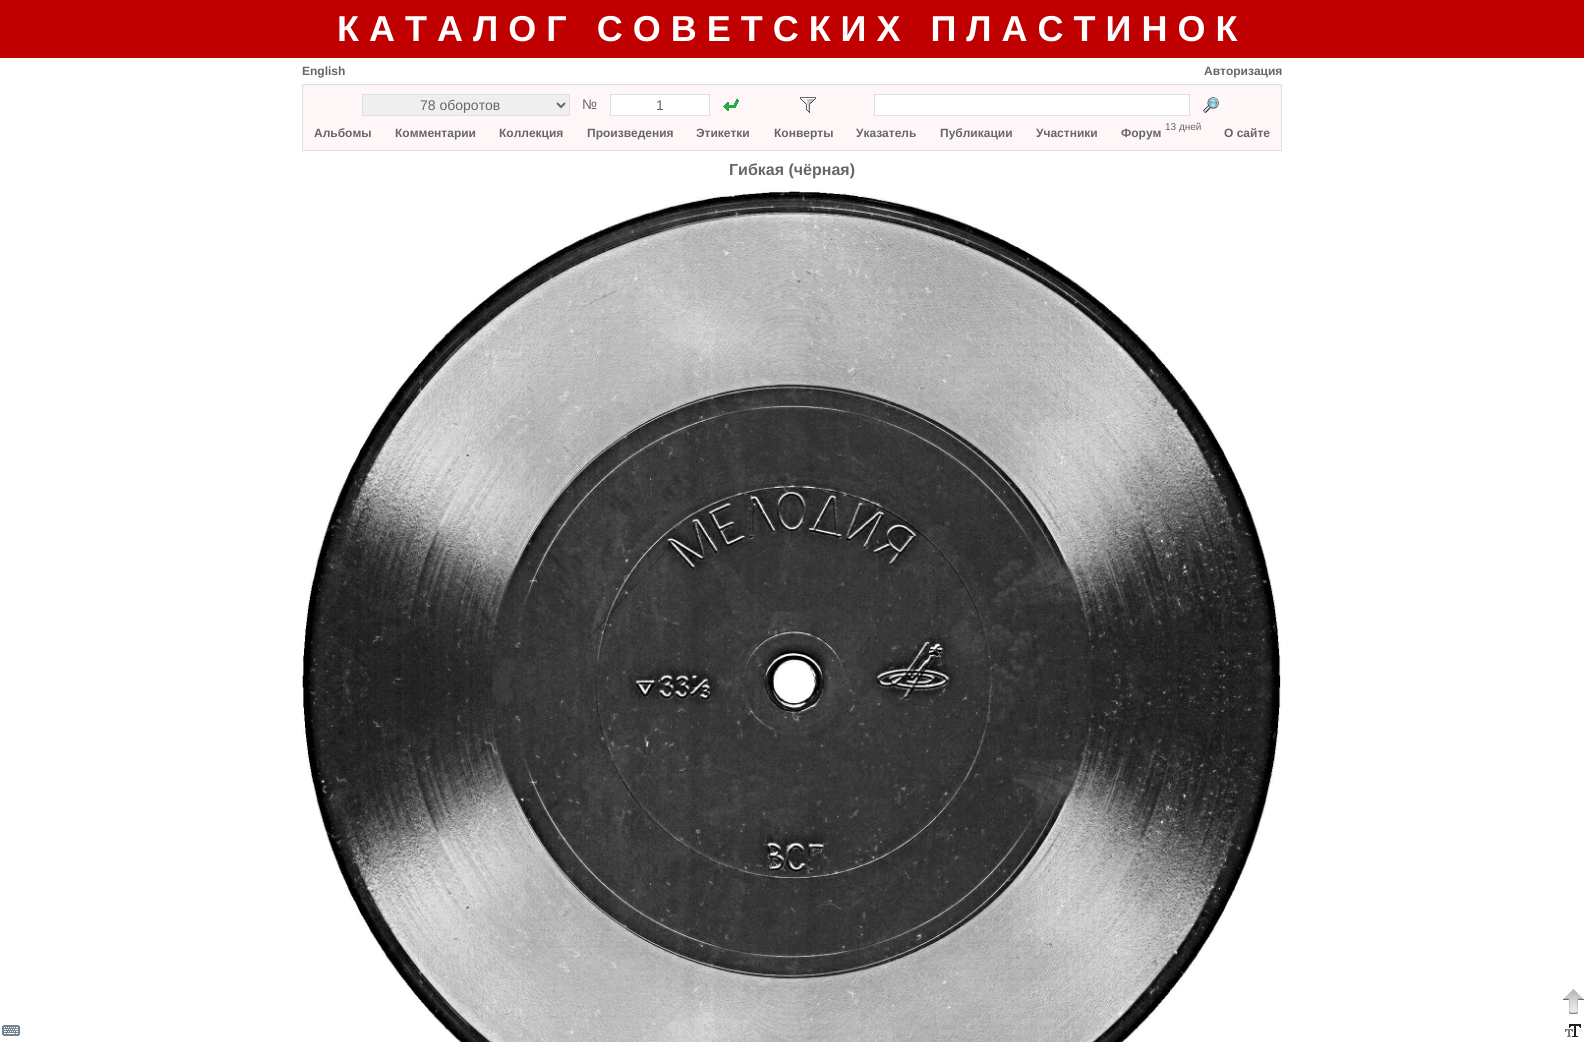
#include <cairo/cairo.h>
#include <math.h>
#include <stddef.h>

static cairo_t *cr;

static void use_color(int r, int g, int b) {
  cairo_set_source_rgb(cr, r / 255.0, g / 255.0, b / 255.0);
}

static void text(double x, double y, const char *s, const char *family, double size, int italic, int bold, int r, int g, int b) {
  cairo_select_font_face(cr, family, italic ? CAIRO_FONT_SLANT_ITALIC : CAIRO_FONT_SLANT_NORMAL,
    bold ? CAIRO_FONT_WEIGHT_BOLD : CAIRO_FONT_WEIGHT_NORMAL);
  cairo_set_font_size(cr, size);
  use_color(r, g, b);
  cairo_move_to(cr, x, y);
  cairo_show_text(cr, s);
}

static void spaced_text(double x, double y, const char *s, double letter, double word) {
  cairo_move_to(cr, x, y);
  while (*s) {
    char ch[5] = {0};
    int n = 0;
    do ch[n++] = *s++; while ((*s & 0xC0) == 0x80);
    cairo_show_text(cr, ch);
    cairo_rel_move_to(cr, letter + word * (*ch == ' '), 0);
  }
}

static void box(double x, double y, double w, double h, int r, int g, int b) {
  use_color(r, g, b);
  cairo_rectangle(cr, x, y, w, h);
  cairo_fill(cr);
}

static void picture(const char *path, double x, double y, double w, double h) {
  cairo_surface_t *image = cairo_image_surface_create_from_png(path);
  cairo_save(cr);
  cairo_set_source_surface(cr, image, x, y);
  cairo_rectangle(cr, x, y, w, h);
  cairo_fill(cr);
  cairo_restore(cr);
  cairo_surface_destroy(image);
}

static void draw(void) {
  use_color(255, 255, 255);
  cairo_paint(cr);
  box(0, 0, 1584, 58, 192, 0, 0);
  use_color(255, 247, 247);
  cairo_rectangle(cr, 302.5, 84.5, 979, 66);
  cairo_fill_preserve(cr);
  use_color(224, 224, 224);
  cairo_set_line_width(cr, 1);
  cairo_stroke(cr);
  use_color(239, 239, 239);
  cairo_rectangle(cr, 362.5, 94.5, 207, 21);
  cairo_fill_preserve(cr);
  use_color(224, 224, 224);
  cairo_stroke(cr);
  cairo_new_path(cr);
  cairo_move_to(cr, 557, 103);
  cairo_line_to(cr, 561, 107);
  cairo_line_to(cr, 565, 103);
  use_color(102, 102, 102);
  cairo_set_line_width(cr, 2);
  cairo_stroke(cr);
  use_color(255, 255, 255);
  cairo_rectangle(cr, 610.5, 94.5, 99, 21);
  cairo_fill_preserve(cr);
  use_color(224, 224, 224);
  cairo_set_line_width(cr, 1);
  cairo_stroke(cr);
  picture("img_01.png", 723, 99, 16, 12);
  picture("img_02.png", 800, 97, 16, 16);
  use_color(255, 255, 255);
  cairo_rectangle(cr, 874.5, 94.5, 315, 21);
  cairo_fill_preserve(cr);
  use_color(224, 224, 224);
  cairo_stroke(cr);
  picture("img_03.png", 1203, 97, 16, 16);
  picture("img_04.png", 302, 190, 979, 852);
  picture("img_05.png", 1562, 989, 22, 25);
  picture("img_06.png", 2, 1025, 18, 11);
  picture("img_07.png", 1565, 1024, 16, 13);
  cairo_select_font_face(cr, "Liberation Sans", CAIRO_FONT_SLANT_NORMAL, CAIRO_FONT_WEIGHT_BOLD);
  cairo_set_font_size(cr, 36);
  use_color(255, 255, 255);
  spaced_text(337, 41, "КАТАЛОГ СОВЕТСКИХ ПЛАСТИНОК", 10, 0);
  text(302, 75, "English", "Liberation Sans", 12, 0, 1, 102, 102, 102);
  text(1204, 75, "Авторизация", "Liberation Sans", 12, 0, 1, 102, 102, 102);
  text(420, 110, "78 оборотов", "Liberation Sans", 14, 0, 0, 102, 102, 102);
  text(582, 109, "№", "Liberation Sans", 14, 0, 0, 102, 102, 102);
  text(656, 110, "1", "Liberation Sans", 14, 0, 0, 102, 102, 102);
  text(1165, 130, "13 дней", "Liberation Sans", 10, 0, 0, 102, 102, 102);
  text(314, 137, "Альбомы", "Liberation Sans", 12, 0, 1, 102, 102, 102);
  text(395, 137, "Комментарии", "Liberation Sans", 12, 0, 1, 102, 102, 102);
  text(499, 137, "Коллекция", "Liberation Sans", 12, 0, 1, 102, 102, 102);
  text(587, 137, "Произведения", "Liberation Sans", 12, 0, 1, 102, 102, 102);
  text(696, 137, "Этикетки", "Liberation Sans", 12, 0, 1, 102, 102, 102);
  text(774, 137, "Конверты", "Liberation Sans", 12, 0, 1, 102, 102, 102);
  text(856, 137, "Указатель", "Liberation Sans", 12, 0, 1, 102, 102, 102);
  text(940, 137, "Публикации", "Liberation Sans", 12, 0, 1, 102, 102, 102);
  text(1036, 137, "Участники", "Liberation Sans", 12, 0, 1, 102, 102, 102);
  text(1121, 137, "Форум", "Liberation Sans", 12, 0, 1, 102, 102, 102);
  text(1224, 137, "О сайте", "Liberation Sans", 12, 0, 1, 102, 102, 102);
  text(729, 175, "Гибкая (чёрная)", "Liberation Sans", 16, 0, 1, 102, 102, 102);
}

int main(void) {
  cairo_surface_t *surface = cairo_image_surface_create(CAIRO_FORMAT_RGB24, 1584, 1042);
  cr = cairo_create(surface);
  cairo_font_options_t *options = cairo_font_options_create();
  cairo_font_options_set_hint_metrics(options, CAIRO_HINT_METRICS_OFF);
  cairo_font_options_set_hint_style(options, CAIRO_HINT_STYLE_NONE);
  cairo_set_font_options(cr, options);
  cairo_set_miter_limit(cr, 4);
  draw();
  cairo_surface_write_to_png(surface, "out.png");
  cairo_font_options_destroy(options);
  cairo_destroy(cr);
  cairo_surface_destroy(surface);
  return 0;
}
